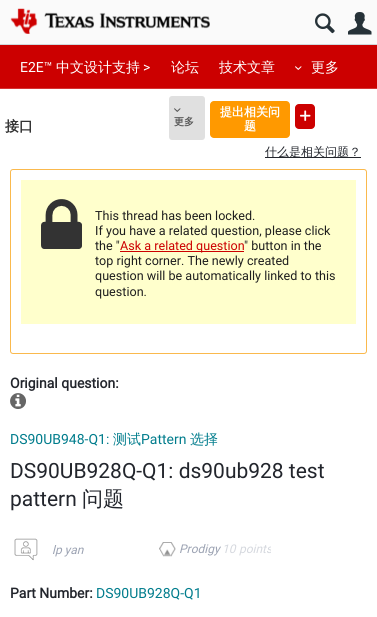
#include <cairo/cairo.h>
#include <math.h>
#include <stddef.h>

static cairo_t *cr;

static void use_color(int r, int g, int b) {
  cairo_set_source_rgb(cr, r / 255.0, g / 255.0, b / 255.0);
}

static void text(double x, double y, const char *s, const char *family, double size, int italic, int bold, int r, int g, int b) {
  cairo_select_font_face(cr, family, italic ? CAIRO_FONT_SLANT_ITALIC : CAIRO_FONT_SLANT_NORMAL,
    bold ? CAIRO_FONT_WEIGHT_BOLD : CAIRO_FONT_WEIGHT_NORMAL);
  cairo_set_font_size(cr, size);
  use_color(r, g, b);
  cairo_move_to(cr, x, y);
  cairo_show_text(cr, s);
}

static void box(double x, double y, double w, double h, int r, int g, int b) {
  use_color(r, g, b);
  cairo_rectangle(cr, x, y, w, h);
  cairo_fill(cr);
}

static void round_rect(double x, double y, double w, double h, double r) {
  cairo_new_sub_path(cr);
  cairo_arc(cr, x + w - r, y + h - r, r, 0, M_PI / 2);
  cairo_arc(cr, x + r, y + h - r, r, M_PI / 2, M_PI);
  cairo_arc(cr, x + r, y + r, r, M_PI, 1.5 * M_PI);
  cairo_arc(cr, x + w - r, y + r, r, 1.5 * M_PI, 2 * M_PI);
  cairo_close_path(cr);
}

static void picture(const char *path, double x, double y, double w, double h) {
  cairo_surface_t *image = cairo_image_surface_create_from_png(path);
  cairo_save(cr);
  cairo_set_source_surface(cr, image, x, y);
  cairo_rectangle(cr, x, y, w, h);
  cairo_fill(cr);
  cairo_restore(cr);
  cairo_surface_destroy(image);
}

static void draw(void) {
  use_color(255, 255, 255);
  cairo_paint(cr);
  box(0, 44, 377, 1, 207, 216, 220);
  box(0, 0, 377, 44, 250, 250, 250);
  picture("img_01.png", 10, 8, 200, 26);
  picture("img_02.png", 315, 13, 20, 21);
  picture("img_03.png", 348, 12, 24, 23);
  box(0, 45, 377, 43, 204, 0, 0);
  box(0, 88, 377, 1, 214, 51, 51);
  picture("img_04.png", 295, 66, 7, 4);
  use_color(224, 224, 224);
  round_rect(169, 96, 36, 44, 3);
  cairo_fill(cr);
  picture("img_05.png", 174, 108, 7, 4);
  use_color(204, 0, 0);
  round_rect(295, 104, 20, 25, 4);
  cairo_fill(cr);
  picture("img_06.png", 300, 110, 11, 11);
  use_color(255, 153, 0);
  round_rect(210, 101, 80, 37, 4);
  cairo_fill(cr);
  box(265, 157, 96, 1, 34, 37, 44);
  round_rect(10.5, 169.5, 356, 184, 2.5);
  use_color(250, 185, 77);
  cairo_set_line_width(cr, 1);
  cairo_stroke(cr);
  box(21, 180, 335, 144, 255, 255, 204);
  picture("img_07.png", 41, 199, 41, 50);
  box(120, 251, 124, 1, 204, 0, 0);
  picture("img_08.png", 10, 393, 16, 16);
  picture("img_09.png", 14, 538, 24, 23);
  picture("img_10.png", 159, 542, 17, 15);
  text(20, 72, "E2E™", "Roboto", 14, 0, 0, 255, 255, 255);
  text(56, 72, "中文设计支持", "WenQuanYi Zen Hei Medium", 14, 0, 0, 255, 255, 255);
  text(143, 72, ">", "Roboto", 14, 0, 0, 255, 255, 255);
  text(171, 72, "论坛", "WenQuanYi Zen Hei Medium", 14, 0, 0, 255, 255, 255);
  text(219, 72, "技术文章", "WenQuanYi Zen Hei Medium", 14, 0, 0, 255, 255, 255);
  text(311, 72, "更多", "WenQuanYi Zen Hei Medium", 14, 0, 0, 255, 255, 255);
  text(5, 131, "接口", "WenQuanYi Zen Hei", 14, 0, 1, 51, 51, 51);
  text(174, 125, "更多", "WenQuanYi Zen Hei", 10, 0, 1, 85, 85, 85);
  text(220, 116, "提出相关问", "WenQuanYi Zen Hei", 12, 0, 1, 255, 255, 255);
  text(244, 130, "题", "WenQuanYi Zen Hei", 12, 0, 1, 255, 255, 255);
  text(265, 156, "什么是相关问题？", "WenQuanYi Zen Hei Medium", 12, 0, 0, 34, 37, 44);
  text(95, 220, "This thread has been locked.", "Roboto", 12.6, 0, 0, 30, 30, 30);
  text(95, 235, "If you have a related question, please click", "Roboto", 12.6, 0, 0, 30, 30, 30);
  text(95, 250, "the \"", "Roboto", 12.6, 0, 0, 30, 30, 30);
  text(120, 250, "Ask a related question", "Roboto", 12.6, 0, 0, 204, 0, 0);
  text(244, 250, "\" button in the", "Roboto", 12.6, 0, 0, 30, 30, 30);
  text(95, 265, "top right corner. The newly created", "Roboto", 12.6, 0, 0, 30, 30, 30);
  text(95, 280, "question will be automatically linked to this", "Roboto", 12.6, 0, 0, 30, 30, 30);
  text(95, 296, "question.", "Roboto", 12.6, 0, 0, 30, 30, 30);
  text(10, 388, "Original question:", "Roboto", 14, 0, 1, 34, 37, 44);
  text(10, 444, "DS90UB948-Q1:", "Roboto", 14, 0, 0, 0, 124, 140);
  text(113, 444, "测试", "WenQuanYi Zen Hei Medium", 14, 0, 0, 0, 124, 140);
  text(141, 444, "Pattern", "Roboto", 14, 0, 0, 0, 124, 140);
  text(190, 444, "选择", "WenQuanYi Zen Hei Medium", 14, 0, 0, 0, 124, 140);
  text(10, 478, "DS90UB928Q-Q1: ds90ub928 test", "Roboto", 21, 0, 0, 34, 37, 44);
  text(10, 506, "pattern", "Roboto", 21, 0, 0, 34, 37, 44);
  text(82, 506, "问题", "WenQuanYi Zen Hei Medium", 21, 0, 0, 34, 37, 44);
  text(52, 554, "lp yan", "Roboto", 12, 1, 0, 155, 162, 178);
  text(179, 553, "Prodigy", "Roboto", 12, 1, 0, 155, 162, 178);
  text(222, 553, "10", "Roboto", 12, 1, 0, 213, 216, 222);
  cairo_save(cr);
  cairo_rectangle(cr, 10, 533, 261, 32);
  cairo_clip(cr);
  text(239, 553, "points", "Roboto", 12, 1, 0, 213, 216, 222);
  cairo_restore(cr);
  text(10, 598, "Part Number:", "Roboto", 14, 0, 1, 34, 37, 44);
  text(96, 598, "DS90UB928Q-Q1", "Roboto", 14, 0, 0, 0, 124, 140);
}

int main(void) {
  cairo_surface_t *surface = cairo_image_surface_create(CAIRO_FORMAT_RGB24, 377, 617);
  cr = cairo_create(surface);
  cairo_font_options_t *options = cairo_font_options_create();
  cairo_font_options_set_hint_metrics(options, CAIRO_HINT_METRICS_OFF);
  cairo_font_options_set_hint_style(options, CAIRO_HINT_STYLE_NONE);
  cairo_set_font_options(cr, options);
  cairo_set_miter_limit(cr, 4);
  draw();
  cairo_surface_write_to_png(surface, "out.png");
  cairo_font_options_destroy(options);
  cairo_destroy(cr);
  cairo_surface_destroy(surface);
  return 0;
}
